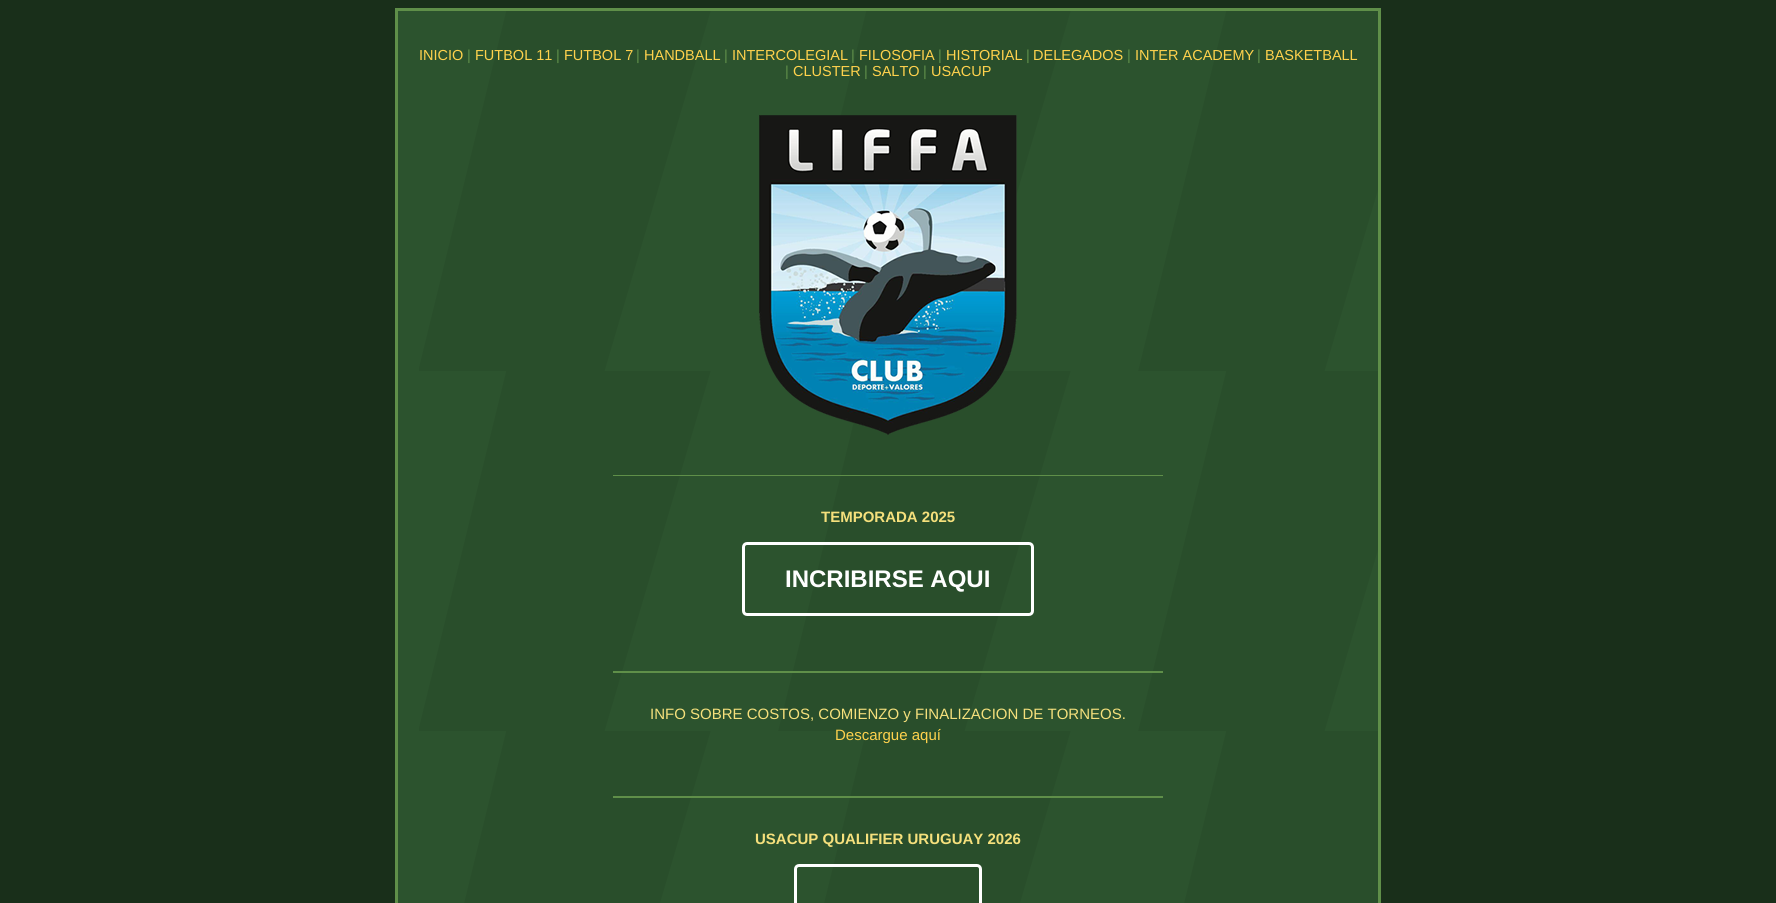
#include <cairo/cairo.h>
#include <math.h>
#include <stddef.h>

static cairo_t *cr;

static void use_color(int r, int g, int b) {
  cairo_set_source_rgb(cr, r / 255.0, g / 255.0, b / 255.0);
}

static void text(double x, double y, const char *s, const char *family, double size, int italic, int bold, int r, int g, int b) {
  cairo_select_font_face(cr, family, italic ? CAIRO_FONT_SLANT_ITALIC : CAIRO_FONT_SLANT_NORMAL,
    bold ? CAIRO_FONT_WEIGHT_BOLD : CAIRO_FONT_WEIGHT_NORMAL);
  cairo_set_font_size(cr, size);
  use_color(r, g, b);
  cairo_move_to(cr, x, y);
  cairo_show_text(cr, s);
}

static void box(double x, double y, double w, double h, int r, int g, int b) {
  use_color(r, g, b);
  cairo_rectangle(cr, x, y, w, h);
  cairo_fill(cr);
}

static void round_rect(double x, double y, double w, double h, double r) {
  cairo_new_sub_path(cr);
  cairo_arc(cr, x + w - r, y + h - r, r, 0, M_PI / 2);
  cairo_arc(cr, x + r, y + h - r, r, M_PI / 2, M_PI);
  cairo_arc(cr, x + r, y + r, r, M_PI, 1.5 * M_PI);
  cairo_arc(cr, x + w - r, y + r, r, 1.5 * M_PI, 2 * M_PI);
  cairo_close_path(cr);
}

static void picture(const char *path, double x, double y, double w, double h) {
  cairo_surface_t *image = cairo_image_surface_create_from_png(path);
  cairo_save(cr);
  cairo_set_source_surface(cr, image, x, y);
  cairo_rectangle(cr, x, y, w, h);
  cairo_fill(cr);
  cairo_restore(cr);
  cairo_surface_destroy(image);
}

static void draw(void) {
  use_color(25, 47, 26);
  cairo_paint(cr);
  box(398, 11, 980, 892, 44, 83, 46);
  picture("img_01.png", 419, 11, 959, 892);
  cairo_rectangle(cr, 396.5, 9.5, 983, 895);
  use_color(95, 143, 73);
  cairo_set_line_width(cr, 3);
  cairo_stroke(cr);
  picture("img_02.png", 759, 115, 258, 320);
  box(613, 475, 550, 1, 95, 143, 73);
  box(613, 671, 550, 2, 95, 143, 73);
  round_rect(743.5, 543.5, 289, 71, 3.5);
  use_color(255, 255, 255);
  cairo_stroke(cr);
  box(613, 796, 550, 2, 95, 143, 73);
  round_rect(795.5, 865.5, 185, 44, 3.5);
  use_color(255, 255, 255);
  cairo_stroke(cr);
  text(419, 60, "INICIO", "Liberation Sans", 14.5, 0, 0, 255, 210, 77);
  text(467, 60, "|", "Liberation Sans", 14.5, 0, 0, 95, 143, 73);
  text(475, 60, "FUTBOL 11", "Liberation Sans", 14.5, 0, 0, 255, 210, 77);
  text(556, 60, "|", "Liberation Sans", 14.5, 0, 0, 95, 143, 73);
  text(564, 60, "FUTBOL 7", "Liberation Sans", 14.5, 0, 0, 255, 210, 77);
  text(636, 60, "|", "Liberation Sans", 14.5, 0, 0, 95, 143, 73);
  text(644, 60, "HANDBALL", "Liberation Sans", 14.5, 0, 0, 255, 210, 77);
  text(724, 60, "|", "Liberation Sans", 14.5, 0, 0, 95, 143, 73);
  text(732, 60, "INTERCOLEGIAL", "Liberation Sans", 14.5, 0, 0, 255, 210, 77);
  text(851, 60, "|", "Liberation Sans", 14.5, 0, 0, 95, 143, 73);
  text(859, 60, "FILOSOFIA", "Liberation Sans", 14.5, 0, 0, 255, 210, 77);
  text(938, 60, "|", "Liberation Sans", 14.5, 0, 0, 95, 143, 73);
  text(946, 60, "HISTORIAL", "Liberation Sans", 14.5, 0, 0, 255, 210, 77);
  text(1026, 60, "|", "Liberation Sans", 14.5, 0, 0, 95, 143, 73);
  text(1033, 60, "DELEGADOS", "Liberation Sans", 14.5, 0, 0, 255, 210, 77);
  text(1127, 60, "|", "Liberation Sans", 14.5, 0, 0, 95, 143, 73);
  text(1135, 60, "INTER ACADEMY", "Liberation Sans", 14.5, 0, 0, 255, 210, 77);
  text(1257, 60, "|", "Liberation Sans", 14.5, 0, 0, 95, 143, 73);
  text(1265, 60, "BASKETBALL", "Liberation Sans", 14.5, 0, 0, 255, 210, 77);
  text(785, 76, "|", "Liberation Sans", 14.5, 0, 0, 95, 143, 73);
  text(793, 76, "CLUSTER", "Liberation Sans", 14.5, 0, 0, 255, 210, 77);
  text(864, 76, "|", "Liberation Sans", 14.5, 0, 0, 95, 143, 73);
  text(872, 76, "SALTO", "Liberation Sans", 14.5, 0, 0, 255, 210, 77);
  text(923, 76, "|", "Liberation Sans", 14.5, 0, 0, 95, 143, 73);
  text(931, 76, "USACUP", "Liberation Sans", 14.5, 0, 0, 255, 210, 77);
  text(821, 522, "TEMPORADA 2025", "Liberation Sans", 15, 0, 1, 245, 224, 124);
  text(785, 587, "INCRIBIRSE AQUI", "Liberation Sans", 24, 0, 1, 255, 255, 255);
  text(650, 719, "INFO SOBRE COSTOS, COMIENZO y FINALIZACION DE TORNEOS.", "Liberation Sans", 15, 0, 0, 245, 224, 124);
  text(835, 740, "Descargue aquí", "Liberation Sans", 15, 0, 0, 255, 210, 77);
  text(755, 844, "USACUP QUALIFIER URUGUAY 2026", "Liberation Sans", 15, 0, 1, 245, 224, 124);
}

int main(void) {
  cairo_surface_t *surface = cairo_image_surface_create(CAIRO_FORMAT_RGB24, 1776, 903);
  cr = cairo_create(surface);
  cairo_font_options_t *options = cairo_font_options_create();
  cairo_font_options_set_hint_metrics(options, CAIRO_HINT_METRICS_OFF);
  cairo_font_options_set_hint_style(options, CAIRO_HINT_STYLE_NONE);
  cairo_set_font_options(cr, options);
  cairo_set_miter_limit(cr, 4);
  draw();
  cairo_surface_write_to_png(surface, "out.png");
  cairo_font_options_destroy(options);
  cairo_destroy(cr);
  cairo_surface_destroy(surface);
  return 0;
}
